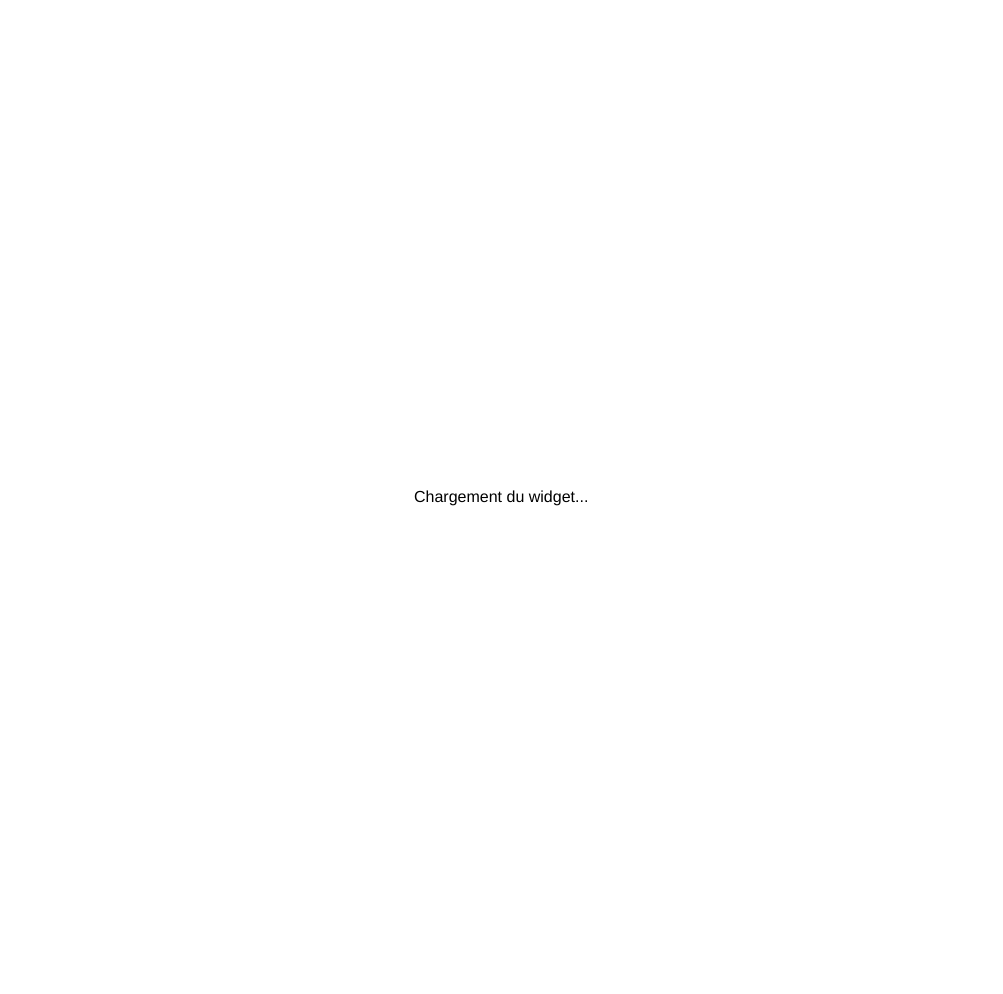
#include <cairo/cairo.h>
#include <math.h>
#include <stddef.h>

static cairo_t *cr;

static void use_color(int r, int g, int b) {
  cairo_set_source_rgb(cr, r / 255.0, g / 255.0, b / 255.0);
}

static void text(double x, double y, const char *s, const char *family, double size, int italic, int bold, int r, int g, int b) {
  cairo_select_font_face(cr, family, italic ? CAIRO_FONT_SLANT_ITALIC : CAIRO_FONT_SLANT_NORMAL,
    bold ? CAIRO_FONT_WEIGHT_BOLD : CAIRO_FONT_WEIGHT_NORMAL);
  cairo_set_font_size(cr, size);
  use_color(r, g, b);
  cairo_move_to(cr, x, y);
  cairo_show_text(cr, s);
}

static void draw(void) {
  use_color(255, 255, 255);
  cairo_paint(cr);
  text(414, 502, "Chargement du widget...", "Liberation Sans", 16, 0, 0, 0, 0, 0);
}

int main(void) {
  cairo_surface_t *surface = cairo_image_surface_create(CAIRO_FORMAT_RGB24, 1003, 994);
  cr = cairo_create(surface);
  cairo_font_options_t *options = cairo_font_options_create();
  cairo_font_options_set_hint_metrics(options, CAIRO_HINT_METRICS_OFF);
  cairo_font_options_set_hint_style(options, CAIRO_HINT_STYLE_NONE);
  cairo_set_font_options(cr, options);
  cairo_set_miter_limit(cr, 4);
  draw();
  cairo_surface_write_to_png(surface, "out.png");
  cairo_font_options_destroy(options);
  cairo_destroy(cr);
  cairo_surface_destroy(surface);
  return 0;
}
